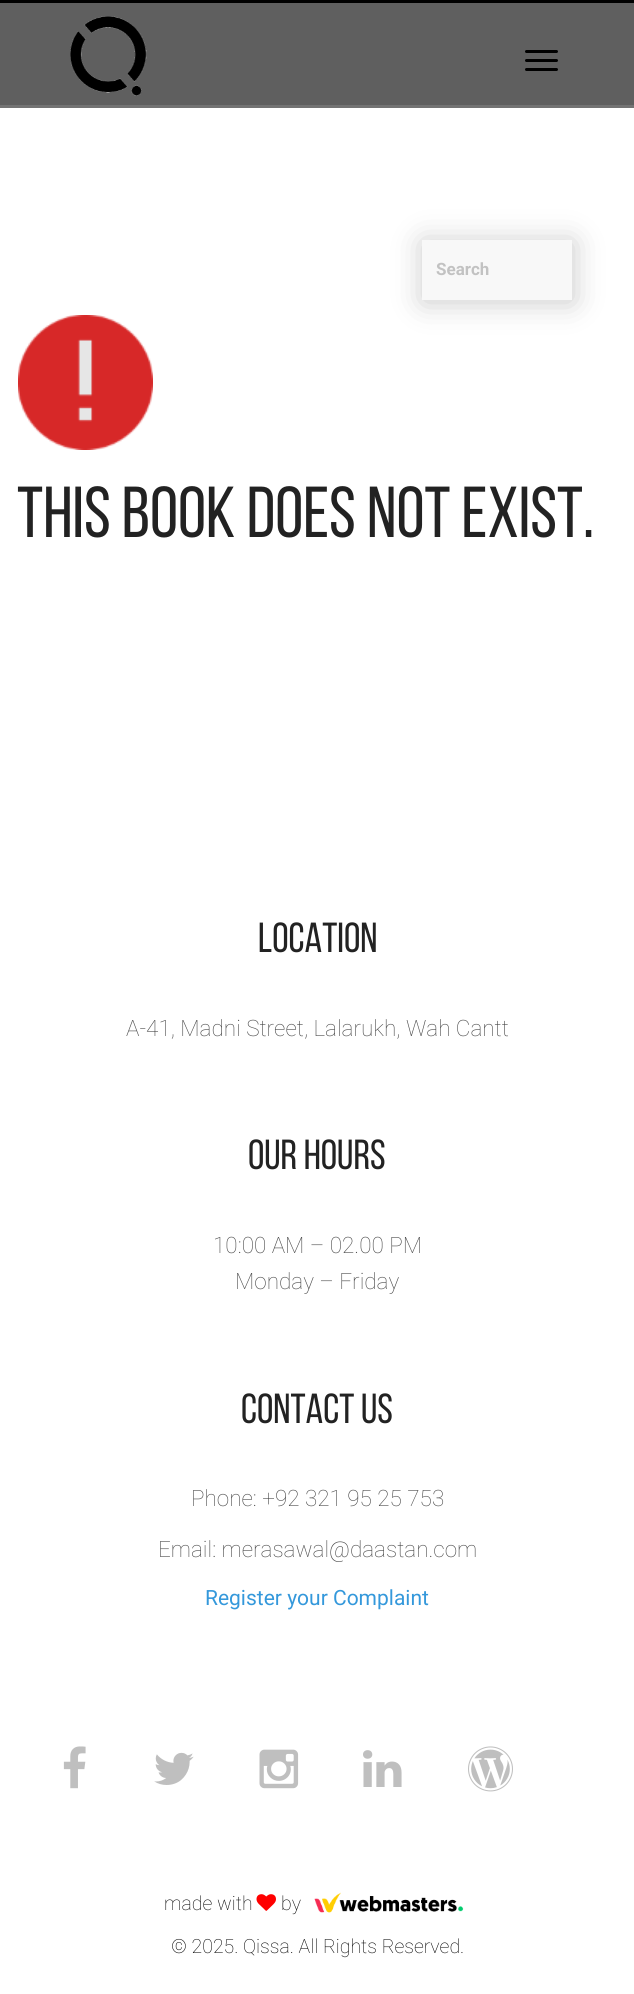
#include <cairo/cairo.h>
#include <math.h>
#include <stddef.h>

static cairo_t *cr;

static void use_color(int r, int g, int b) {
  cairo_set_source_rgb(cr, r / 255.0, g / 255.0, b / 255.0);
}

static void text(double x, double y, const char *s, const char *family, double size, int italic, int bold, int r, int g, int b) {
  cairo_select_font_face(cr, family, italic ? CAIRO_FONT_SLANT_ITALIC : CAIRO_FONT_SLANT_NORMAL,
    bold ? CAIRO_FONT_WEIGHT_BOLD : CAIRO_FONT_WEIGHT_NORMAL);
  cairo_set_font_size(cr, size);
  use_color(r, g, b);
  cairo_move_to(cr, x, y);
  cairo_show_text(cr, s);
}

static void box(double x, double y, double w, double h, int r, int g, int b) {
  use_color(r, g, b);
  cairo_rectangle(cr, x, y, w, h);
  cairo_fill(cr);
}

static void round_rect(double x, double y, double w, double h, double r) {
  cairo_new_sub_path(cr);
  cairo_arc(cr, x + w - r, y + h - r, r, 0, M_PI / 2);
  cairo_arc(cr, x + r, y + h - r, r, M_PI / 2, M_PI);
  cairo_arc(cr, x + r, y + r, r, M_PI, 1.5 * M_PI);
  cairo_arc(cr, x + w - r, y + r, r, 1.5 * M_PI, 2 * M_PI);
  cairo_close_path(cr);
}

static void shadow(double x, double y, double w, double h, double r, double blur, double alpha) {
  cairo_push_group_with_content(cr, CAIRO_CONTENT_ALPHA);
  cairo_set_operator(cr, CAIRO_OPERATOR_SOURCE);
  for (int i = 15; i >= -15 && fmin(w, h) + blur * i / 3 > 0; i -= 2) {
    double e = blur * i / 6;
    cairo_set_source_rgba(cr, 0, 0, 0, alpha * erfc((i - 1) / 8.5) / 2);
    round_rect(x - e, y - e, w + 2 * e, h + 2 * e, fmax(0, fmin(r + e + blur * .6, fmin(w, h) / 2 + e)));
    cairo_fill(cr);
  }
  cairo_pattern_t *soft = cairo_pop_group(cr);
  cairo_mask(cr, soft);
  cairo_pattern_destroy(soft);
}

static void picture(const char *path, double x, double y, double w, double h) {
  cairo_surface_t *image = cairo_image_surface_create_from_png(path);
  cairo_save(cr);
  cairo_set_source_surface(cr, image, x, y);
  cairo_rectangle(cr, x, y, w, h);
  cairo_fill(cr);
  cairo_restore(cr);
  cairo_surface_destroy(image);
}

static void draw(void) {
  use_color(255, 255, 255);
  cairo_paint(cr);
  box(0, 105, 634, 3, 115, 115, 115);
  box(0, 0, 634, 3, 0, 0, 0);
  box(0, 3, 634, 102, 95, 95, 95);
  picture("img_01.png", 70, 16, 77, 80);
  use_color(0, 0, 0);
  round_rect(525, 50, 33, 3, 1.5);
  cairo_fill(cr);
  round_rect(525, 59, 33, 3, 1.5);
  cairo_fill(cr);
  round_rect(525, 68, 33, 3, 1.5);
  cairo_fill(cr);
  box(422, 240, 150, 60, 248, 248, 248);
  cairo_save(cr);
  cairo_set_fill_rule(cr, CAIRO_FILL_RULE_EVEN_ODD);
  cairo_new_path(cr);
  cairo_move_to(cr, 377, 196);
  cairo_line_to(cr, 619, 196);
  cairo_line_to(cr, 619, 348);
  cairo_line_to(cr, 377, 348);
  cairo_close_path(cr);
  cairo_move_to(cr, 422, 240);
  cairo_line_to(cr, 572, 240);
  cairo_line_to(cr, 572, 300);
  cairo_line_to(cr, 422, 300);
  cairo_close_path(cr);
  cairo_clip(cr);
  use_color(169, 169, 169);
  shadow(423, 242, 150, 60, 0, 15, 0.62);
  cairo_restore(cr);
  picture("img_02.png", 18, 315, 135, 135);
  picture("img_03.png", 63, 1746, 23, 43);
  picture("img_04.png", 154, 1752, 40, 33);
  picture("img_05.png", 259, 1749, 40, 40);
  picture("img_06.png", 363, 1750, 39, 37);
  picture("img_07.png", 468, 1746, 45, 46);
  picture("img_08.png", 256, 1894, 20, 17);
  picture("img_09.png", 314, 1892, 150, 21);
  text(436, 275, "Search", "Roboto", 17, 0, 1, 194, 194, 194);
  text(17, 537, "This book does not exist.", "Bebas Neue", 72, 0, 0, 34, 34, 34);
  text(258, 952, "Location", "Bebas Neue", 42, 0, 0, 34, 34, 34);
  text(126, 1036, "A-41, Madni Street, Lalarukh, Wah Cantt", "Roboto Thin", 22.5, 0, 0, 72, 72, 72);
  text(248, 1169, "Our Hours", "Bebas Neue", 42, 0, 0, 34, 34, 34);
  text(213, 1253, "10:00 AM – 02.00 PM", "Roboto Thin", 22.5, 0, 0, 72, 72, 72);
  text(235, 1289, "Monday – Friday", "Roboto Thin", 22.5, 0, 0, 72, 72, 72);
  text(241, 1423, "Contact Us", "Bebas Neue", 42, 0, 0, 34, 34, 34);
  text(191, 1506, "Phone: +92 321 95 25 753", "Roboto Thin", 22.5, 0, 0, 72, 72, 72);
  text(158, 1557, "Email: merasawal@daastan.com", "Roboto Thin", 22.5, 0, 0, 72, 72, 72);
  text(205, 1605, "Register your Complaint", "Roboto", 21, 0, 0, 52, 152, 219);
  text(164, 1910, "made with", "Roboto Thin", 19.5, 0, 0, 0, 0, 0);
  text(281, 1910, "by", "Roboto Thin", 19.5, 0, 0, 0, 0, 0);
  text(171, 1953, "© 2025. Qissa. All Rights Reserved.", "Roboto Thin", 19.5, 0, 0, 0, 0, 0);
}

int main(void) {
  cairo_surface_t *surface = cairo_image_surface_create(CAIRO_FORMAT_RGB24, 634, 1994);
  cr = cairo_create(surface);
  cairo_font_options_t *options = cairo_font_options_create();
  cairo_font_options_set_hint_metrics(options, CAIRO_HINT_METRICS_OFF);
  cairo_font_options_set_hint_style(options, CAIRO_HINT_STYLE_NONE);
  cairo_set_font_options(cr, options);
  cairo_set_miter_limit(cr, 4);
  draw();
  cairo_surface_write_to_png(surface, "out.png");
  cairo_font_options_destroy(options);
  cairo_destroy(cr);
  cairo_surface_destroy(surface);
  return 0;
}
